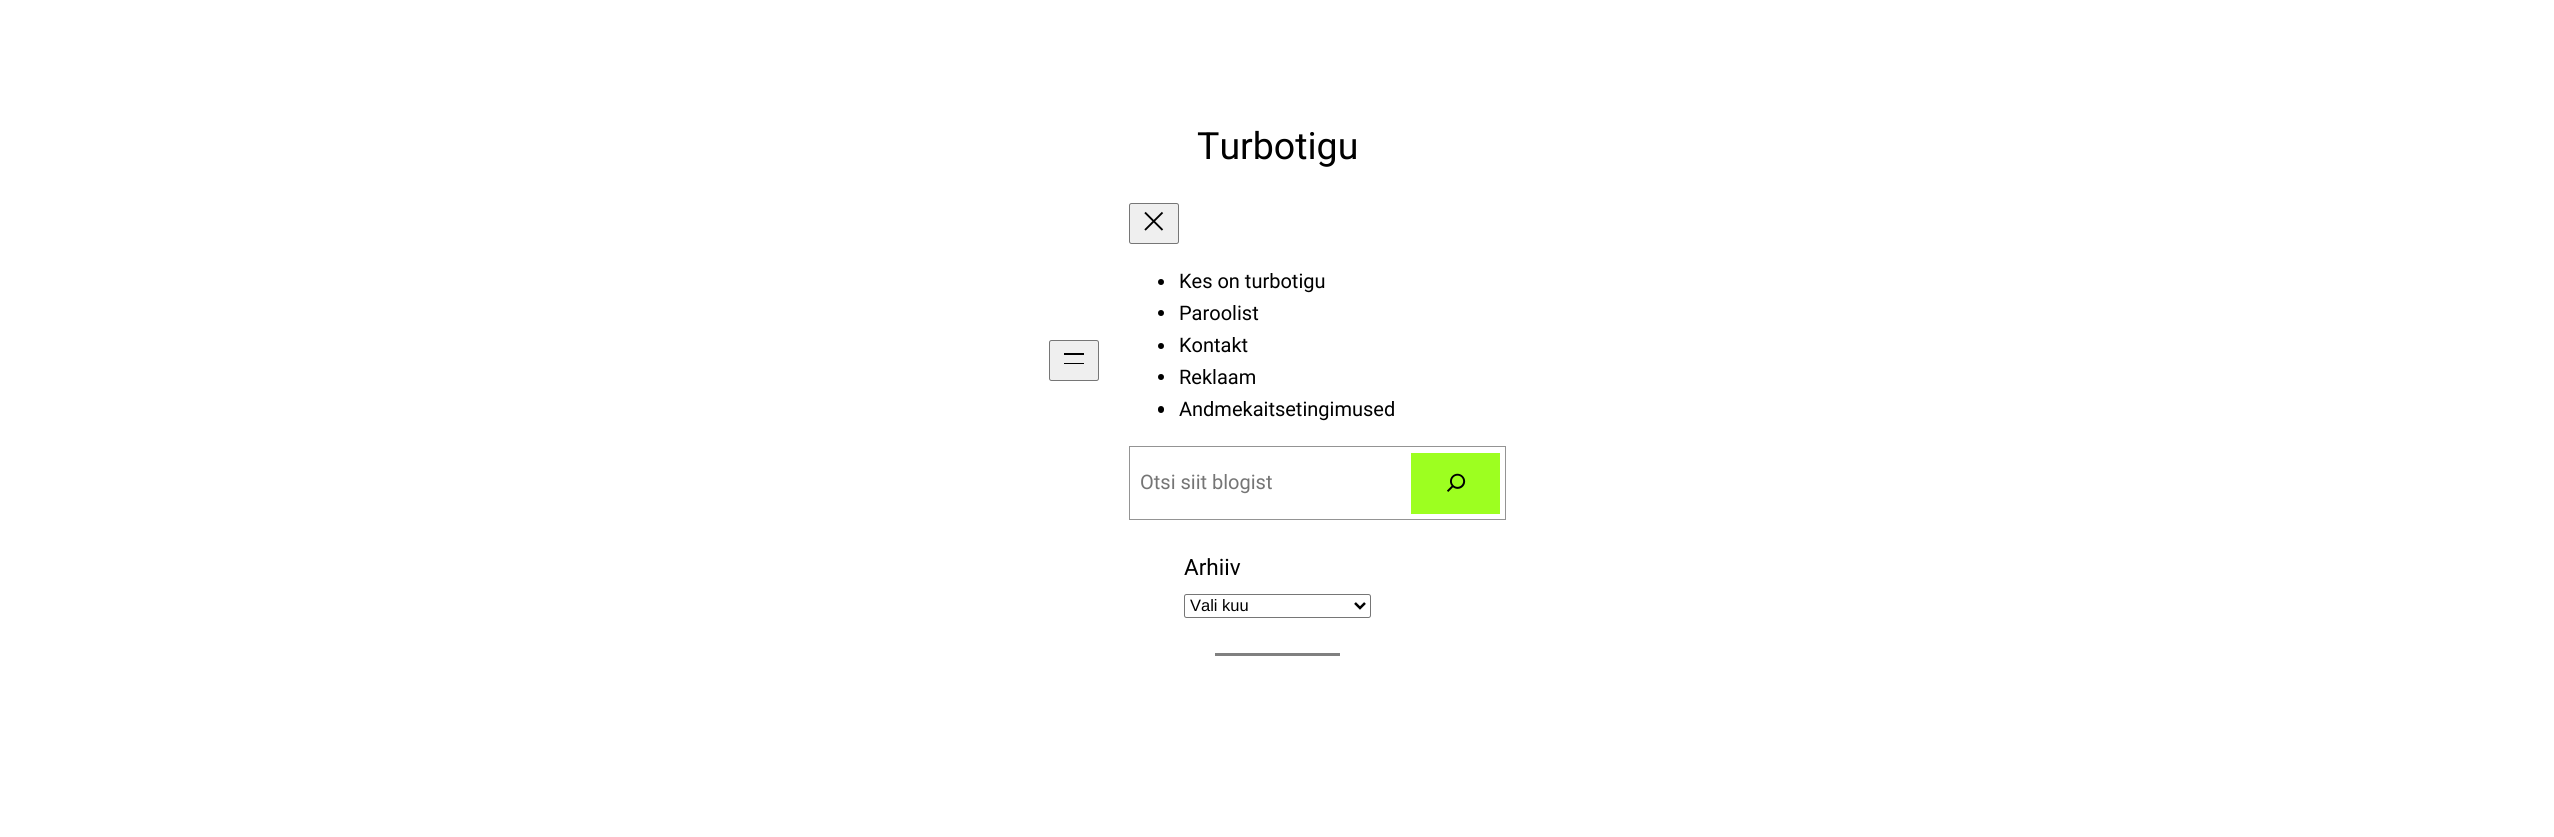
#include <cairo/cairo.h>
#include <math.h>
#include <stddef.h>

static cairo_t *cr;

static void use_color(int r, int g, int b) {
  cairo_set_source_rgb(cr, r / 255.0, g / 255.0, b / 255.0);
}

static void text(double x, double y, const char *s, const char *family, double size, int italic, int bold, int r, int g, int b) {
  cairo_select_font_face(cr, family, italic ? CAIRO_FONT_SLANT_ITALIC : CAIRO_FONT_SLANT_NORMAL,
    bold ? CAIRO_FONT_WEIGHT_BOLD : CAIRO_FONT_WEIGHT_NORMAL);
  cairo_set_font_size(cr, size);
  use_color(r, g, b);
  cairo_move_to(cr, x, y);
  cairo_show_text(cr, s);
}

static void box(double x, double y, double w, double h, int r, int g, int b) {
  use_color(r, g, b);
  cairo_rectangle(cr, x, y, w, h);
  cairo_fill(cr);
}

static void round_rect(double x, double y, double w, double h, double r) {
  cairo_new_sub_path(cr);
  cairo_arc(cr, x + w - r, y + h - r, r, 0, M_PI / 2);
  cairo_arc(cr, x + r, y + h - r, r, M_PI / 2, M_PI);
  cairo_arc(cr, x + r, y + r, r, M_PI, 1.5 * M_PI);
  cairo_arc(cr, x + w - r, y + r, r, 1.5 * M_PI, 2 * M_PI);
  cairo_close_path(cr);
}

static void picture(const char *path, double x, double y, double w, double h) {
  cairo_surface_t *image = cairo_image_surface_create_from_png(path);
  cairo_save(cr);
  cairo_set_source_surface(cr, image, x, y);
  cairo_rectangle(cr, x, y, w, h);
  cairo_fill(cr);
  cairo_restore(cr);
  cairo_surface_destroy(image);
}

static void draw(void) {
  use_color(255, 255, 255);
  cairo_paint(cr);
  use_color(239, 239, 239);
  round_rect(1049.5, 340.5, 49, 40, 2);
  cairo_fill_preserve(cr);
  use_color(118, 118, 118);
  cairo_set_line_width(cr, 1);
  cairo_stroke(cr);
  box(1064, 353, 20, 2, 0, 0, 0);
  box(1064, 363, 20, 1, 0, 0, 0);
  use_color(239, 239, 239);
  round_rect(1129.5, 203.5, 49, 40, 2);
  cairo_fill_preserve(cr);
  use_color(118, 118, 118);
  cairo_stroke(cr);
  picture("img_01.png", 1144, 211, 20, 20);
  use_color(0, 0, 0);
  cairo_arc(cr, 1161, 282, 3, 0, 2 * M_PI);
  cairo_fill(cr);
  cairo_arc(cr, 1161, 313, 3, 0, 2 * M_PI);
  cairo_fill(cr);
  cairo_arc(cr, 1161, 346, 3, 0, 2 * M_PI);
  cairo_fill(cr);
  cairo_arc(cr, 1161, 377, 3, 0, 2 * M_PI);
  cairo_fill(cr);
  round_rect(1158, 406, 6, 7, 3);
  cairo_fill(cr);
  cairo_rectangle(cr, 1129.5, 446.5, 376, 73);
  use_color(148, 148, 148);
  cairo_stroke(cr);
  box(1411, 453, 89, 61, 157, 255, 32);
  picture("img_02.png", 1447, 473, 19, 19);
  round_rect(1184.5, 594.5, 186, 23, 2);
  use_color(118, 118, 118);
  cairo_stroke(cr);
  cairo_new_path(cr);
  cairo_move_to(cr, 1355, 603);
  cairo_line_to(cr, 1360, 608);
  cairo_line_to(cr, 1365, 603);
  use_color(0, 0, 0);
  cairo_set_line_width(cr, 2.5);
  cairo_stroke(cr);
  box(1215, 653, 125, 3, 128, 128, 128);
  text(1197, 159, "Turbotigu", "Roboto", 37.5, 0, 0, 0, 0, 0);
  text(1179, 288, "Kes on turbotigu", "Roboto", 20, 0, 0, 0, 0, 0);
  text(1179, 320, "Paroolist", "Roboto", 20, 0, 0, 0, 0, 0);
  text(1179, 352, "Kontakt", "Roboto", 20, 0, 0, 0, 0, 0);
  text(1179, 384, "Reklaam", "Roboto", 20, 0, 0, 0, 0, 0);
  text(1179, 416, "Andmekaitsetingimused", "Roboto", 20, 0, 0, 0, 0, 0);
  text(1140, 489, "Otsi siit blogist", "Roboto", 20, 0, 0, 117, 117, 117);
  text(1184, 575, "Arhiiv", "Roboto", 22.5, 0, 0, 0, 0, 0);
  text(1190, 611, "Vali kuu", "Liberation Sans", 16.5, 0, 0, 0, 0, 0);
}

int main(void) {
  cairo_surface_t *surface = cairo_image_surface_create(CAIRO_FORMAT_RGB24, 2554, 837);
  cr = cairo_create(surface);
  cairo_font_options_t *options = cairo_font_options_create();
  cairo_font_options_set_hint_metrics(options, CAIRO_HINT_METRICS_OFF);
  cairo_font_options_set_hint_style(options, CAIRO_HINT_STYLE_NONE);
  cairo_set_font_options(cr, options);
  cairo_set_miter_limit(cr, 4);
  draw();
  cairo_surface_write_to_png(surface, "out.png");
  cairo_font_options_destroy(options);
  cairo_destroy(cr);
  cairo_surface_destroy(surface);
  return 0;
}
